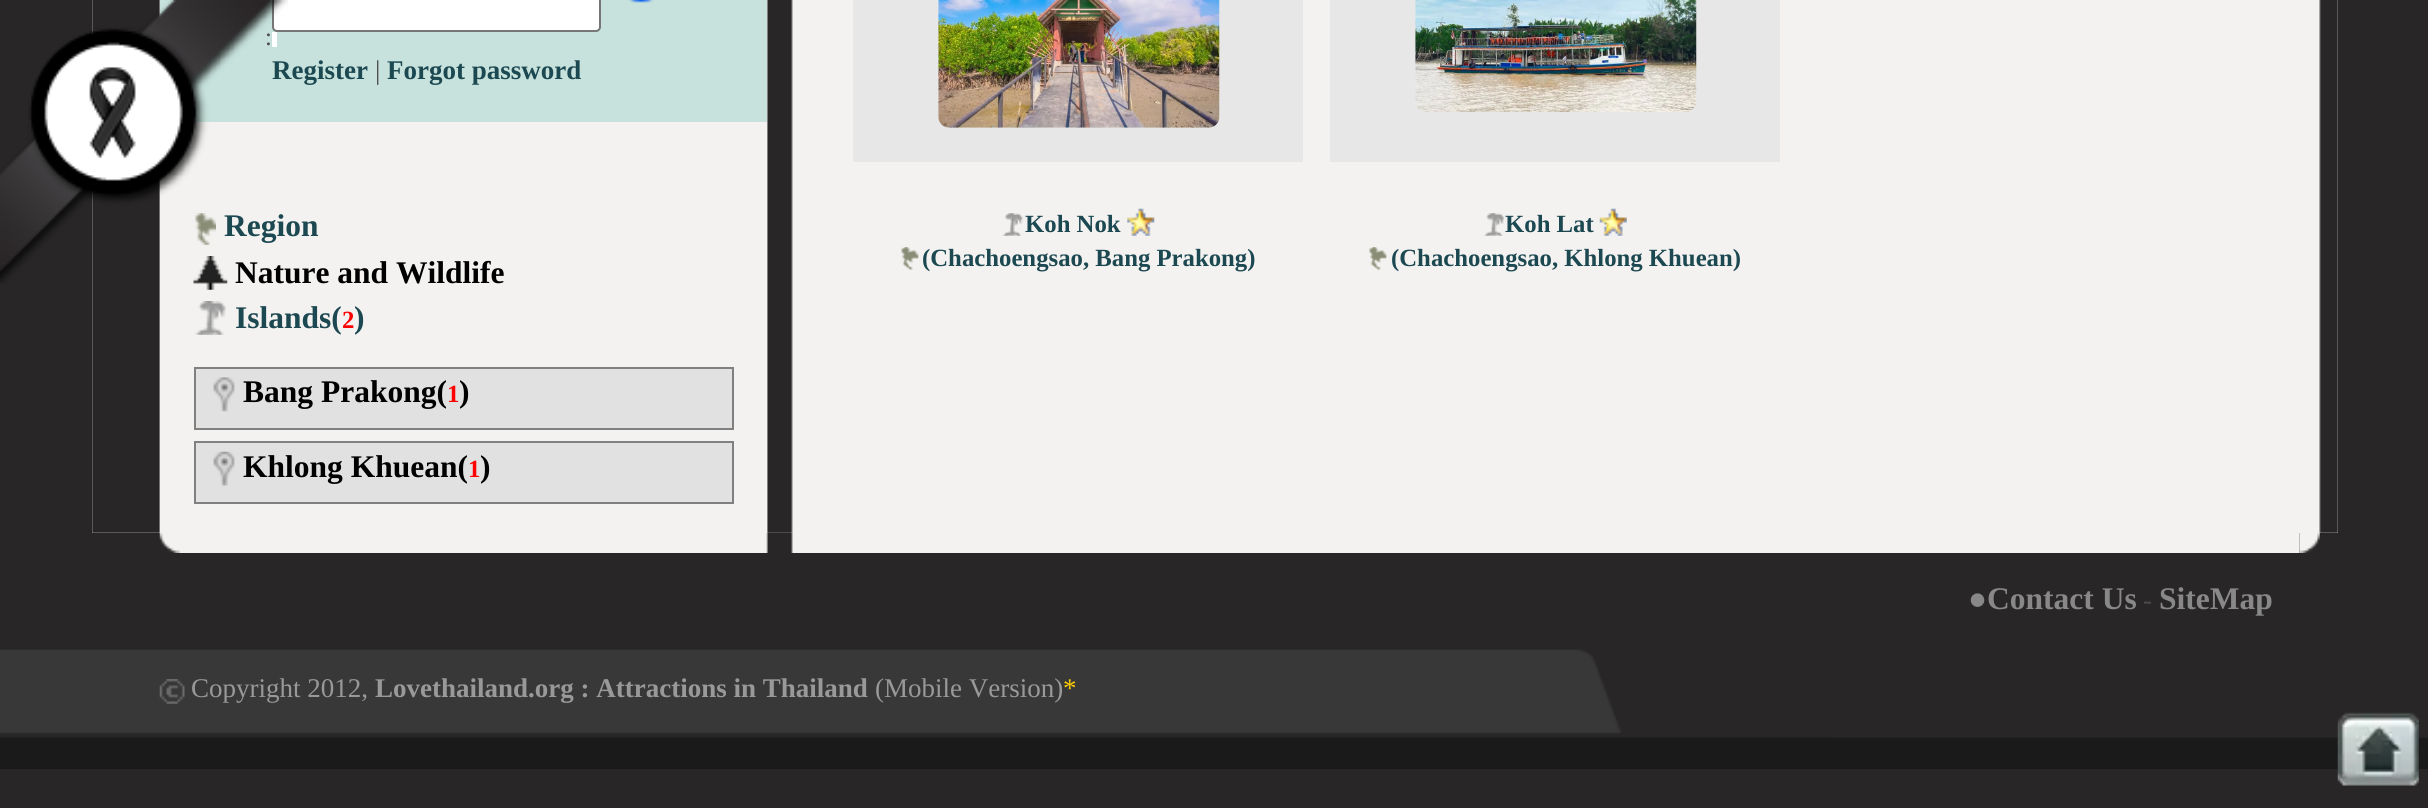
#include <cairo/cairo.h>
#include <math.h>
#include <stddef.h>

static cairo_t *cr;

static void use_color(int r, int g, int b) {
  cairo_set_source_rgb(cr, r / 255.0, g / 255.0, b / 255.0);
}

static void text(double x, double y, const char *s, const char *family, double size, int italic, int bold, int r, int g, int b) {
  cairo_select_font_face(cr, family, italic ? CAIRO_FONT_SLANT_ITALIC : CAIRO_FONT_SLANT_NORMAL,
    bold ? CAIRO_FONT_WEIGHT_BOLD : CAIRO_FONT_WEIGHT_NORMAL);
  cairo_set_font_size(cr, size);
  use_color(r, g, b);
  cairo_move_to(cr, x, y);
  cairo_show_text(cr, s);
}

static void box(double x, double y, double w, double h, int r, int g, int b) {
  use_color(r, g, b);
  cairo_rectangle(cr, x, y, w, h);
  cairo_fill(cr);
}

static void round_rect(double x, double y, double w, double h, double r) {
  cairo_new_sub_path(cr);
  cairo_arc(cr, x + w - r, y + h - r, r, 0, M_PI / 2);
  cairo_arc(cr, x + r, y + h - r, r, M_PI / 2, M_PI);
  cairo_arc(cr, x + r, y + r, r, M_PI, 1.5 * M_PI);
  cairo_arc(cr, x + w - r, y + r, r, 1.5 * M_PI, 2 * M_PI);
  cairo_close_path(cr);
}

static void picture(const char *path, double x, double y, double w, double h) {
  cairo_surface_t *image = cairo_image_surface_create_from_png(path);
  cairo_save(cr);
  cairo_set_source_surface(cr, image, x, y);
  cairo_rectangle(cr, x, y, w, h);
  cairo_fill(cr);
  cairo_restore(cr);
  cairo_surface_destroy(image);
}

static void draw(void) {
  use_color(40, 38, 39);
  cairo_paint(cr);
  box(92, 0, 2246, 533, 243, 242, 240);
  picture("img_02.png", 92, 0, 2246, 533);
  box(160, 122, 607, 411, 243, 242, 240);
  box(160, 0, 607, 122, 199, 226, 220);
  picture("img_03.png", 627, 0, 28, 3);
  use_color(255, 255, 255);
  round_rect(273, -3, 327, 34, 4);
  cairo_fill_preserve(cr);
  use_color(118, 118, 118);
  cairo_stroke(cr);
  box(272, 32, 5, 15, 255, 255, 255);
  picture("img_04.png", 195, 213, 21, 32);
  picture("img_05.png", 193, 256, 35, 34);
  picture("img_06.png", 195, 301, 31, 34);
  use_color(225, 225, 225);
  cairo_rectangle(cr, 195, 368, 538, 61);
  cairo_fill_preserve(cr);
  use_color(128, 128, 128);
  cairo_stroke(cr);
  picture("img_07.png", 213, 377, 22, 35);
  use_color(225, 225, 225);
  cairo_rectangle(cr, 195, 442, 538, 61);
  cairo_fill_preserve(cr);
  use_color(128, 128, 128);
  cairo_stroke(cr);
  picture("img_08.png", 213, 451, 22, 35);
  box(853, 0, 450, 162, 231, 231, 231);
  picture("img_09.png", 938, 0, 282, 128);
  picture("img_10.png", 1002, 213, 21, 23);
  picture("img_11.png", 1127, 208, 28, 28);
  picture("img_12.png", 901, 247, 18, 23);
  box(1330, 0, 450, 162, 231, 231, 231);
  picture("img_13.png", 1415, 0, 282, 112);
  picture("img_14.png", 1484, 213, 20, 23);
  picture("img_15.png", 1599, 208, 28, 28);
  picture("img_12.png", 1369, 247, 18, 23);
  picture("img_16.png", 159, 532, 21, 21);
  picture("img_17.png", 180, 532, 2120, 21);
  picture("img_18.png", 2299, 532, 21, 21);
  picture("img_19.png", 0, 649, 2428, 120);
  picture("img_20.png", 159, 679, 26, 25);
  picture("img_21.png", 2337, 712, 82, 74);
  text(265, 45, ":", "Liberation Serif", 24.75, 0, 0, 78, 74, 73);
  text(272, 79, "Register", "Liberation Serif", 27, 0, 1, 28, 72, 81);
  text(375, 79, "|", "Liberation Serif", 27, 0, 0, 78, 74, 73);
  text(387, 79, "Forgot password", "Liberation Serif", 27, 0, 1, 28, 72, 81);
  text(224, 236, "Region", "Liberation Serif", 31.5, 0, 1, 28, 72, 81);
  text(235, 283, "Nature and Wildlife", "Liberation Serif", 31.5, 0, 1, 0, 0, 0);
  picture("img_01.png", 0, 0, 288, 284);
  text(235, 328, "Islands(", "Liberation Serif", 31.5, 0, 1, 28, 72, 81);
  text(342, 328, "2", "Liberation Serif", 24.75, 0, 1, 255, 0, 0);
  text(354, 328, ")", "Liberation Serif", 31.5, 0, 1, 28, 72, 81);
  text(243, 402, "Bang Prakong(", "Liberation Serif", 31.5, 0, 1, 0, 0, 0);
  text(447, 402, "1", "Liberation Serif", 24.75, 0, 1, 255, 0, 0);
  text(459, 402, ")", "Liberation Serif", 31.5, 0, 1, 0, 0, 0);
  text(243, 477, "Khlong Khuean(", "Liberation Serif", 31.5, 0, 1, 0, 0, 0);
  text(468, 477, "1", "Liberation Serif", 24.75, 0, 1, 255, 0, 0);
  text(480, 477, ")", "Liberation Serif", 31.5, 0, 1, 0, 0, 0);
  text(1025, 232, "Koh Nok", "Liberation Serif", 24.75, 0, 1, 28, 72, 81);
  text(922, 266, "(Chachoengsao, Bang Prakong)", "Liberation Serif", 24.75, 0, 1, 28, 72, 81);
  text(1505, 232, "Koh Lat", "Liberation Serif", 24.75, 0, 1, 28, 72, 81);
  text(1391, 266, "(Chachoengsao, Khlong Khuean)", "Liberation Serif", 24.75, 0, 1, 28, 72, 81);
  text(1968, 609, "●Contact Us", "Liberation Serif", 31.5, 0, 1, 136, 136, 136);
  text(2143, 609, "-", "Liberation Serif", 27, 0, 0, 78, 74, 73);
  text(2159, 609, "SiteMap", "Liberation Serif", 31.5, 0, 1, 136, 136, 136);
  text(191, 697, "Copyright 2012,", "Liberation Serif", 27, 0, 0, 153, 153, 153);
  text(375, 697, "Lovethailand.org : Attractions in Thailand", "Liberation Serif", 27, 0, 1, 153, 153, 153);
  text(875, 697, "(Mobile Version)", "Liberation Serif", 27, 0, 0, 153, 153, 153);
  text(1063, 697, "*", "Liberation Serif", 27, 0, 0, 255, 204, 0);
}

int main(void) {
  cairo_surface_t *surface = cairo_image_surface_create(CAIRO_FORMAT_RGB24, 2428, 808);
  cr = cairo_create(surface);
  cairo_font_options_t *options = cairo_font_options_create();
  cairo_font_options_set_hint_metrics(options, CAIRO_HINT_METRICS_OFF);
  cairo_font_options_set_hint_style(options, CAIRO_HINT_STYLE_NONE);
  cairo_set_font_options(cr, options);
  cairo_set_miter_limit(cr, 4);
  draw();
  cairo_surface_write_to_png(surface, "out.png");
  cairo_font_options_destroy(options);
  cairo_destroy(cr);
  cairo_surface_destroy(surface);
  return 0;
}
